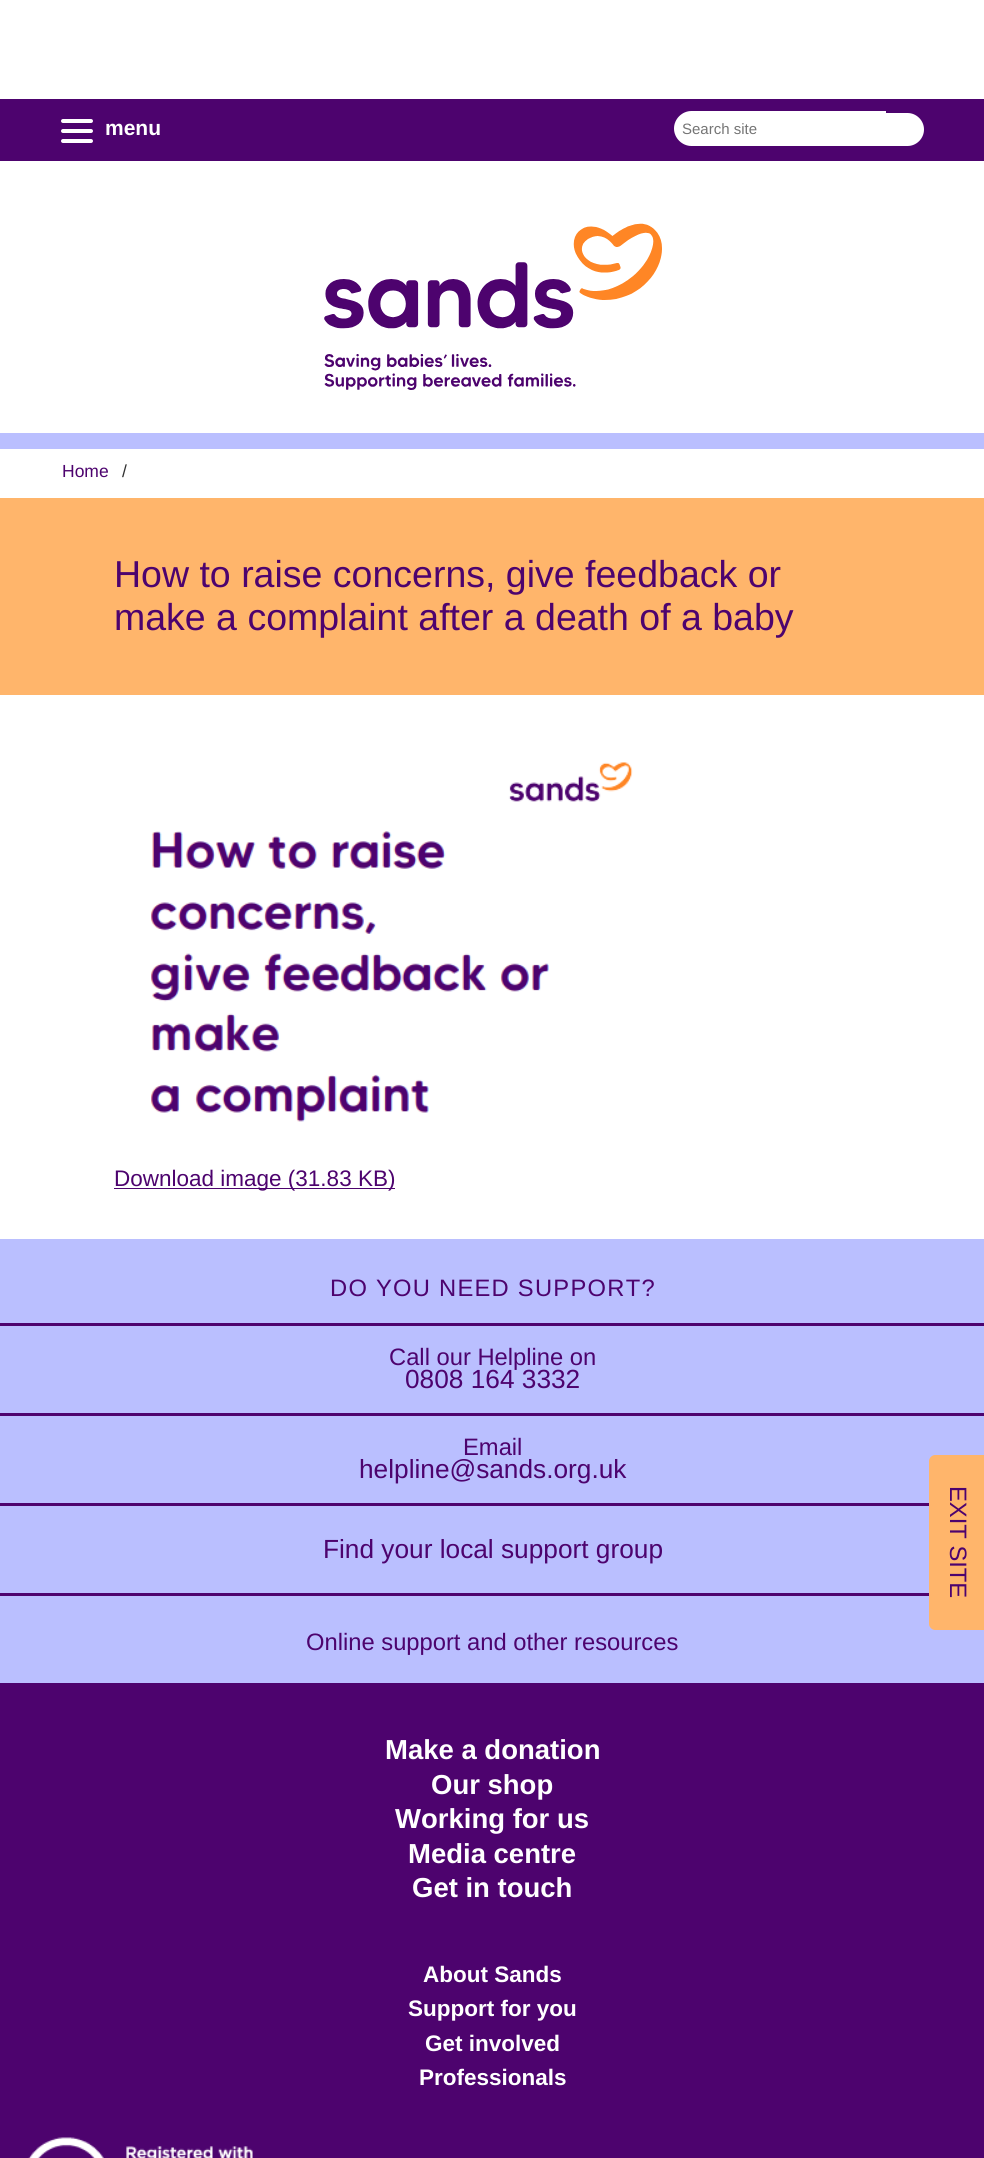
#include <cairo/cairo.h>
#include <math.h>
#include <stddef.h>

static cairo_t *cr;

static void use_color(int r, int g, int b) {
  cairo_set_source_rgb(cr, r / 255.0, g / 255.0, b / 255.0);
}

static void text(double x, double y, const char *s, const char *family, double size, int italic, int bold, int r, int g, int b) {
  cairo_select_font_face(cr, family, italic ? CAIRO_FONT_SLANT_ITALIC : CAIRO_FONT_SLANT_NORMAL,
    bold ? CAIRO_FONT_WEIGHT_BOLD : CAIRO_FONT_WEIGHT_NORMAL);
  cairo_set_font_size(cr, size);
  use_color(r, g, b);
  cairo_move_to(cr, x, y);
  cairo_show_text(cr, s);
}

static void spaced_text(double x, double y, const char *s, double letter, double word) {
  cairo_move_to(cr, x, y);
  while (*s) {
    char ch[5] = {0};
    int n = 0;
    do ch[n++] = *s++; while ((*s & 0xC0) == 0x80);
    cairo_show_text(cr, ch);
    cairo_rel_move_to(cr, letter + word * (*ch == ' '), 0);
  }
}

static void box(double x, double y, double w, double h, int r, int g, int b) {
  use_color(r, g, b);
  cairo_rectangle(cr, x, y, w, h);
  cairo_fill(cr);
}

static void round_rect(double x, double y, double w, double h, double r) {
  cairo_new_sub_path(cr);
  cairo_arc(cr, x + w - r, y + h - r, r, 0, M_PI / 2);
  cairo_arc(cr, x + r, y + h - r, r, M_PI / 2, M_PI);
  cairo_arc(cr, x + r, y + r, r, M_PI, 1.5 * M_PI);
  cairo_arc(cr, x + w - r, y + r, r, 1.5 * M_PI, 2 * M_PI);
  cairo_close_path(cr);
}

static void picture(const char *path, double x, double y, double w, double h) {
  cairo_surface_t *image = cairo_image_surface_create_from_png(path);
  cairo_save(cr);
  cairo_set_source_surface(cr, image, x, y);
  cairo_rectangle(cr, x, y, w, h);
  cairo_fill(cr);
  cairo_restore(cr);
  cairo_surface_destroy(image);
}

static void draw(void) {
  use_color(255, 255, 255);
  cairo_paint(cr);
  box(0, 99, 984, 62, 77, 3, 110);
  use_color(255, 255, 255);
  round_rect(61, 119, 32, 4, 2);
  cairo_fill(cr);
  round_rect(61, 129, 32, 4, 2);
  cairo_fill(cr);
  round_rect(61, 139, 32, 4, 2);
  cairo_fill(cr);
  cairo_new_path(cr);
  cairo_move_to(cr, 691.5, 111);
  cairo_line_to(cr, 886, 111);
  cairo_line_to(cr, 886, 146);
  cairo_line_to(cr, 691.5, 146);
  cairo_curve_to(cr, 682, 146, 674, 138, 674, 128.5);
  cairo_curve_to(cr, 674, 119, 682, 111, 691.5, 111);
  cairo_close_path(cr);
  cairo_fill(cr);
  cairo_new_path(cr);
  cairo_move_to(cr, 886, 113);
  cairo_line_to(cr, 907.5, 113);
  cairo_curve_to(cr, 916.5, 113, 924, 120.5, 924, 129.5);
  cairo_curve_to(cr, 924, 138.5, 916.5, 146, 907.5, 146);
  cairo_line_to(cr, 886, 146);
  cairo_close_path(cr);
  cairo_fill(cr);
  box(0, 433, 984, 16, 186, 191, 255);
  picture("img_01.png", 324, 223, 338, 167);
  box(0, 498, 984, 197, 255, 181, 107);
  picture("img_02.png", 151, 762, 482, 360);
  box(114, 1188, 281, 1, 77, 3, 110);
  box(0, 1239, 984, 444, 186, 191, 255);
  box(0, 1323, 984, 3, 77, 3, 110);
  box(0, 1413, 984, 3, 77, 3, 110);
  box(0, 1503, 929, 3, 77, 3, 110);
  box(0, 1593, 929, 3, 77, 3, 110);
  box(0, 1683, 984, 475, 77, 3, 110);
  picture("img_03.png", 28, 2137, 225, 21);
  use_color(255, 181, 107);
  cairo_new_path(cr);
  cairo_move_to(cr, 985, 1455);
  cairo_line_to(cr, 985, 1630);
  cairo_line_to(cr, 935, 1630);
  cairo_curve_to(cr, 932, 1630, 929, 1627, 929, 1624);
  cairo_line_to(cr, 929, 1461);
  cairo_curve_to(cr, 929, 1458, 932, 1455, 935, 1455);
  cairo_close_path(cr);
  cairo_fill(cr);
  text(105, 135, "menu", "Liberation Sans", 21, 0, 1, 255, 255, 255);
  text(682, 134, "Search site", "Liberation Sans", 15, 0, 0, 117, 117, 117);
  text(62, 477, "Home", "Liberation Sans", 17.5, 0, 0, 77, 3, 110);
  text(122, 477, "/", "Liberation Sans", 17.5, 0, 0, 50, 50, 50);
  text(114, 587, "How to raise concerns, give feedback or", "Liberation Sans", 37.5, 0, 0, 77, 3, 110);
  text(114, 630, "make a complaint after a death of a baby", "Liberation Sans", 37.5, 0, 0, 77, 3, 110);
  text(114, 1186, "Download image (31.83 KB)", "Liberation Sans", 22.5, 0, 0, 77, 3, 110);
  cairo_set_font_size(cr, 23.75);
  spaced_text(330, 1296, "DO YOU NEED SUPPORT?", 1.25, 0);
  text(389, 1365, "Call our Helpline on", "Liberation Sans", 23.75, 0, 0, 77, 3, 110);
  text(405, 1388, "0808 164 3332", "Liberation Sans", 26.25, 0, 0, 77, 3, 110);
  text(463, 1455, "Email", "Liberation Sans", 23.75, 0, 0, 77, 3, 110);
  text(359, 1478, "helpline@sands.org.uk", "Liberation Sans", 26.25, 0, 0, 77, 3, 110);
  text(323, 1558, "Find your local support group", "Liberation Sans", 26.25, 0, 0, 77, 3, 110);
  text(306, 1650, "Online support and other resources", "Liberation Sans", 23.75, 0, 0, 77, 3, 110);
  text(385, 1759, "Make a donation", "Liberation Sans", 27.5, 0, 1, 255, 255, 255);
  text(431, 1794, "Our shop", "Liberation Sans", 27.5, 0, 1, 255, 255, 255);
  text(395, 1828, "Working for us", "Liberation Sans", 27.5, 0, 1, 255, 255, 255);
  text(408, 1863, "Media centre", "Liberation Sans", 27.5, 0, 1, 255, 255, 255);
  text(412, 1897, "Get in touch", "Liberation Sans", 27.5, 0, 1, 255, 255, 255);
  text(423, 1982, "About Sands", "Liberation Sans", 22.5, 0, 1, 255, 255, 255);
  text(408, 2016, "Support for you", "Liberation Sans", 22.5, 0, 1, 255, 255, 255);
  text(425, 2051, "Get involved", "Liberation Sans", 22.5, 0, 1, 255, 255, 255);
  text(419, 2085, "Professionals", "Liberation Sans", 22.5, 0, 1, 255, 255, 255);
  cairo_save(cr);
  cairo_translate(cr, 950, 1486);
  cairo_rotate(cr, 90 * M_PI / 180);
  text(0, 0, "EXIT SITE", "Liberation Sans", 23.75, 0, 0, 77, 3, 110);
  cairo_restore(cr);
}

int main(void) {
  cairo_surface_t *surface = cairo_image_surface_create(CAIRO_FORMAT_RGB24, 984, 2158);
  cr = cairo_create(surface);
  cairo_font_options_t *options = cairo_font_options_create();
  cairo_font_options_set_hint_metrics(options, CAIRO_HINT_METRICS_OFF);
  cairo_font_options_set_hint_style(options, CAIRO_HINT_STYLE_NONE);
  cairo_set_font_options(cr, options);
  cairo_set_miter_limit(cr, 4);
  draw();
  cairo_surface_write_to_png(surface, "out.png");
  cairo_font_options_destroy(options);
  cairo_destroy(cr);
  cairo_surface_destroy(surface);
  return 0;
}
